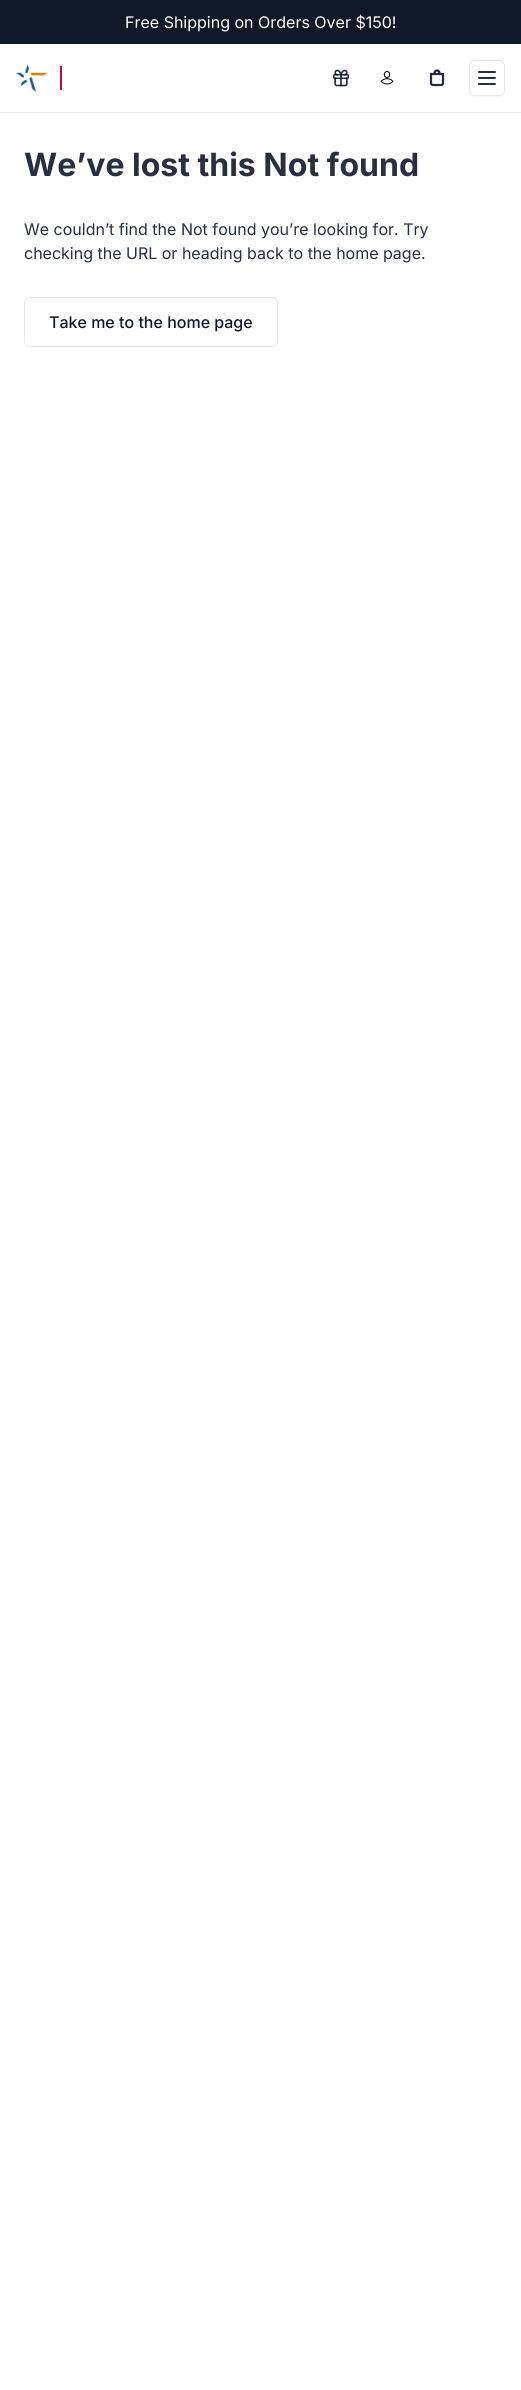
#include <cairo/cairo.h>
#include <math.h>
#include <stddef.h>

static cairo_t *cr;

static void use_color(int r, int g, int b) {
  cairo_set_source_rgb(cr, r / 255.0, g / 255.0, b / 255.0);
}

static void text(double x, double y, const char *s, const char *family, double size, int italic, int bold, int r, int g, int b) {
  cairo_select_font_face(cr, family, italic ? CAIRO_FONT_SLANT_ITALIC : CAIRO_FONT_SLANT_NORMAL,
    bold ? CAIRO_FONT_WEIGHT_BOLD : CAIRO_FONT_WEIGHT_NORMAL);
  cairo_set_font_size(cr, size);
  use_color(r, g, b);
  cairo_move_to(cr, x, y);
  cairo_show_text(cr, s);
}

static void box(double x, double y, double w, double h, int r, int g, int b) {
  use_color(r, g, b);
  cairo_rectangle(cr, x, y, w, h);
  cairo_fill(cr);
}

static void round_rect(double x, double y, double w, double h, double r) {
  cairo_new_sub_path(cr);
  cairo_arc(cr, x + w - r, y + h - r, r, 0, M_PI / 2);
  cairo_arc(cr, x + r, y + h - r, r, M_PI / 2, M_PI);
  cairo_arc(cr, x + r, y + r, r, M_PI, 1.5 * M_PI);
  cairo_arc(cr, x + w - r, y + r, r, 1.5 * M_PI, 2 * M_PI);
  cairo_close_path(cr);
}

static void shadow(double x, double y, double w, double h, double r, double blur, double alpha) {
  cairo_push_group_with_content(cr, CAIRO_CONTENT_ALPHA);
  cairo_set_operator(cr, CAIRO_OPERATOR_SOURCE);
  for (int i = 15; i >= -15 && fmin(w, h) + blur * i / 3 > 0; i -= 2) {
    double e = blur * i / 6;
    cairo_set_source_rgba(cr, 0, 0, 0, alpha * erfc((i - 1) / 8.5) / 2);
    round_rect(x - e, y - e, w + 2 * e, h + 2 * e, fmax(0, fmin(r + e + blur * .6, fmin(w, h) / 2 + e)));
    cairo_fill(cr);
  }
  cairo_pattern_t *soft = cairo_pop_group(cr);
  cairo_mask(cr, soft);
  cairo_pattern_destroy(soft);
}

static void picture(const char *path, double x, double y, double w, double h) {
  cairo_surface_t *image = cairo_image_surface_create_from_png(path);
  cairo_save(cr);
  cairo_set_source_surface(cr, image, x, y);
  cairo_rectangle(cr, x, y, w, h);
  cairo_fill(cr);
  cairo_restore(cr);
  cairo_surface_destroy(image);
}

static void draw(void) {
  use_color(255, 255, 255);
  cairo_paint(cr);
  box(0, 0, 521, 44, 17, 24, 39);
  box(0, 112, 521, 1, 229, 231, 235);
  picture("img_01.png", 16, 64, 32, 28);
  box(60, 66, 2, 24, 200, 16, 46);
  picture("img_02.png", 333, 69, 16, 18);
  picture("img_03.png", 380, 71, 14, 14);
  picture("img_04.png", 429, 69, 16, 18);
  use_color(0, 0, 0);
  shadow(469, 61, 36, 36, 6, 1, 0.05);
  use_color(255, 255, 255);
  round_rect(469.5, 60.5, 35, 35, 5.5);
  cairo_fill_preserve(cr);
  use_color(229, 231, 235);
  cairo_set_line_width(cr, 1);
  cairo_stroke(cr);
  picture("img_05.png", 478, 71, 18, 14);
  round_rect(24.5, 297.5, 253, 49, 5.5);
  use_color(231, 232, 233);
  cairo_stroke(cr);
  text(125, 28, "Free Shipping on Orders Over $150!", "Inter", 16, 0, 0, 255, 255, 255);
  text(24, 176, "We’ve lost this Not found", "Inter", 32, 0, 1, 41, 47, 61);
  text(24, 235, "We couldn’t find the Not found you’re looking for. Try", "Inter", 16, 0, 0, 41, 47, 61);
  text(24, 259, "checking the URL or heading back to the home page.", "Inter", 16, 0, 0, 41, 47, 61);
  text(49, 328, "Take me to the home page", "Inter Medium", 16, 0, 0, 17, 24, 39);
}

int main(void) {
  cairo_surface_t *surface = cairo_image_surface_create(CAIRO_FORMAT_RGB24, 521, 2390);
  cr = cairo_create(surface);
  cairo_font_options_t *options = cairo_font_options_create();
  cairo_font_options_set_hint_metrics(options, CAIRO_HINT_METRICS_OFF);
  cairo_font_options_set_hint_style(options, CAIRO_HINT_STYLE_NONE);
  cairo_set_font_options(cr, options);
  cairo_set_miter_limit(cr, 4);
  draw();
  cairo_surface_write_to_png(surface, "out.png");
  cairo_font_options_destroy(options);
  cairo_destroy(cr);
  cairo_surface_destroy(surface);
  return 0;
}
